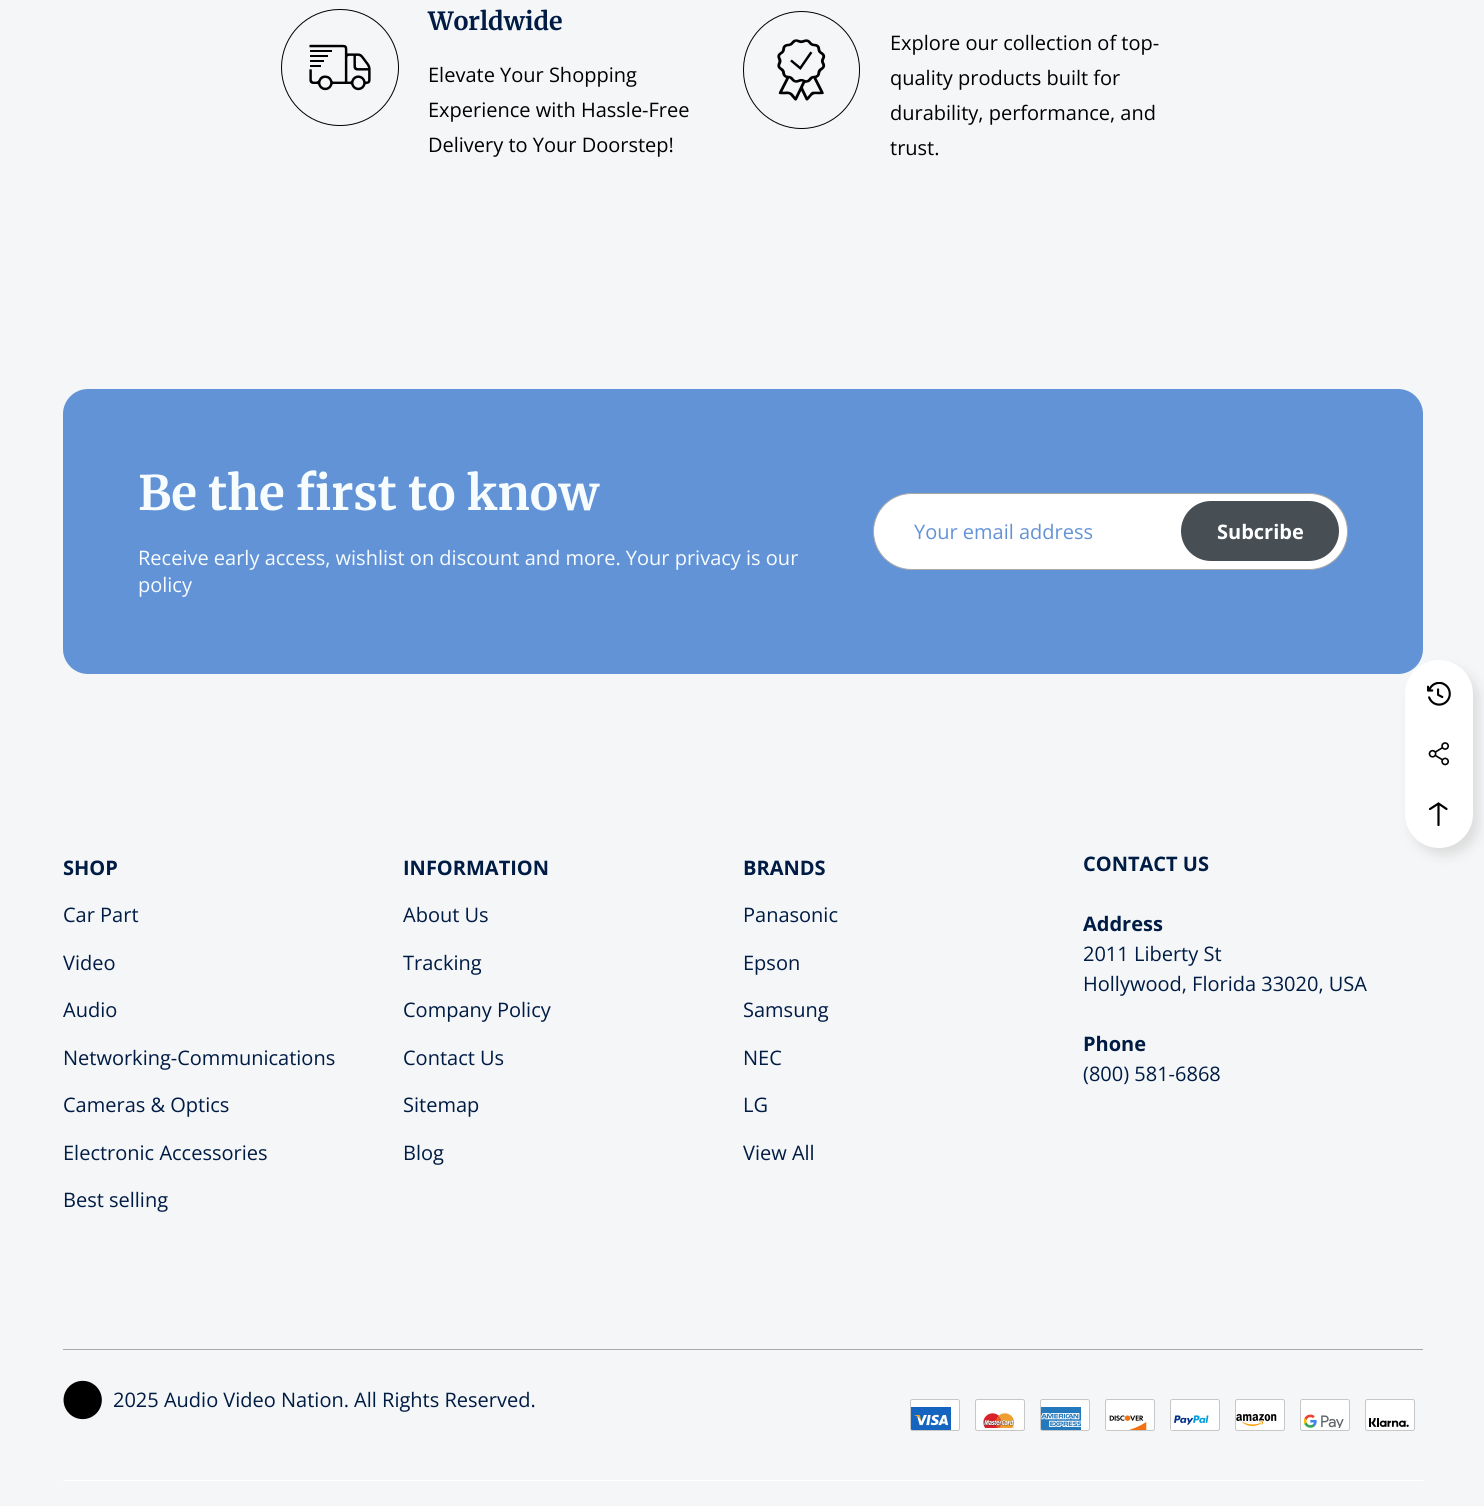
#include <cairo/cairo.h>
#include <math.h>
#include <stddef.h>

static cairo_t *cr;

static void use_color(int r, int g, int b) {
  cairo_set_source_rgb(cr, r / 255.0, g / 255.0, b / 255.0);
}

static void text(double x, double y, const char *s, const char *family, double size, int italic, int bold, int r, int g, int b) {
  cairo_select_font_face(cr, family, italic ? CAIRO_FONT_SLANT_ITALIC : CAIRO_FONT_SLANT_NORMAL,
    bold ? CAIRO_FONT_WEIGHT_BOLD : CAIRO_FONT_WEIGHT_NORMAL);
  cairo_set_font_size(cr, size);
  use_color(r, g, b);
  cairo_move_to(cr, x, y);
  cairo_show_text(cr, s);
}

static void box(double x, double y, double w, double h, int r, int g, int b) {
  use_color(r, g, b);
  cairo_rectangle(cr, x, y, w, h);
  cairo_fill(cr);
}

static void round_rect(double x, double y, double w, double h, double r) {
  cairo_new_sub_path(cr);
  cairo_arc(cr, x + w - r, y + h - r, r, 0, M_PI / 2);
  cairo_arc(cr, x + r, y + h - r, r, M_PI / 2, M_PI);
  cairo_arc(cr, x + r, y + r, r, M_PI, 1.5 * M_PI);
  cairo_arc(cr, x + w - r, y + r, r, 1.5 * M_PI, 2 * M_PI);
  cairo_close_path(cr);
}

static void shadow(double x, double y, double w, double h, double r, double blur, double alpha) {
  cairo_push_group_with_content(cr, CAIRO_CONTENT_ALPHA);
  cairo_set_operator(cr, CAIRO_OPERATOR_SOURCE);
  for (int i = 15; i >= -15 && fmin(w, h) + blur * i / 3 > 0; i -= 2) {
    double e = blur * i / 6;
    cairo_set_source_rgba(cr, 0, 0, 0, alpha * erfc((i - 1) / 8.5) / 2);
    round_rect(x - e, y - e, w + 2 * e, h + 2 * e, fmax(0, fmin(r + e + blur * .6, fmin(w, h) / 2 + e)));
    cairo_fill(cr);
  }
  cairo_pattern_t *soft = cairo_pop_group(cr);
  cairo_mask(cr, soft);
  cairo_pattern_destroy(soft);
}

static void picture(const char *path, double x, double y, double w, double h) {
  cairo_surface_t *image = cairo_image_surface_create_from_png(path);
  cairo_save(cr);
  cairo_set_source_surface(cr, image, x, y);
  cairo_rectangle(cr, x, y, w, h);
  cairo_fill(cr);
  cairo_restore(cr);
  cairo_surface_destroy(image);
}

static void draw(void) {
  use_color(244, 246, 247);
  cairo_paint(cr);
  round_rect(281.5, 9.5, 117, 116, 58);
  use_color(0, 0, 0);
  cairo_set_line_width(cr, 1);
  cairo_stroke(cr);
  picture("img_01.png", 309, 44, 62, 47);
  round_rect(743.5, 11.5, 116, 117, 58);
  cairo_stroke(cr);
  picture("img_02.png", 777, 39, 49, 62);
  use_color(98, 147, 214);
  round_rect(63, 389, 1360, 285, 25);
  cairo_fill(cr);
  use_color(255, 255, 255);
  round_rect(873.5, 493.5, 474, 76, 38);
  cairo_fill_preserve(cr);
  use_color(169, 169, 169);
  cairo_stroke(cr);
  use_color(71, 78, 84);
  round_rect(1181, 501, 158, 60, 30);
  cairo_fill(cr);
  use_color(176, 173, 173);
  shadow(1411, 668, 68, 187, 34, 5.5, 0.35);
  use_color(255, 255, 255);
  round_rect(1405, 660, 68, 188, 34);
  cairo_fill(cr);
  picture("img_03.png", 1427, 682, 24, 24);
  picture("img_04.png", 1428, 742, 21, 24);
  cairo_new_path(cr);
  cairo_move_to(cr, 1438.5, 825);
  cairo_line_to(cr, 1438.5, 803.5);
  cairo_move_to(cr, 1430, 809);
  cairo_line_to(cr, 1438.5, 803.5);
  cairo_line_to(cr, 1446.5, 809);
  use_color(0, 0, 0);
  cairo_set_line_width(cr, 2.2);
  cairo_set_line_cap(cr, CAIRO_LINE_CAP_ROUND);
  cairo_stroke(cr);
  box(63, 1349, 1360, 1, 169, 169, 169);
  box(63, 1480, 1360, 1, 255, 255, 255);
  picture("img_05.png", 63, 1380, 39, 40);
  round_rect(910.5, 1399.5, 49, 31, 2);
  cairo_fill_preserve(cr);
  use_color(199, 199, 199);
  cairo_set_line_width(cr, 1);
  cairo_set_line_cap(cr, CAIRO_LINE_CAP_BUTT);
  cairo_stroke(cr);
  use_color(255, 255, 255);
  round_rect(975.5, 1399.5, 49, 31, 2);
  cairo_fill_preserve(cr);
  use_color(199, 199, 199);
  cairo_stroke(cr);
  use_color(255, 255, 255);
  round_rect(1040.5, 1399.5, 49, 31, 2);
  cairo_fill_preserve(cr);
  use_color(199, 199, 199);
  cairo_stroke(cr);
  use_color(255, 255, 255);
  round_rect(1105.5, 1399.5, 49, 31, 2);
  cairo_fill_preserve(cr);
  use_color(199, 199, 199);
  cairo_stroke(cr);
  use_color(255, 255, 255);
  round_rect(1170.5, 1399.5, 49, 31, 2);
  cairo_fill_preserve(cr);
  use_color(199, 199, 199);
  cairo_stroke(cr);
  use_color(255, 255, 255);
  round_rect(1235.5, 1399.5, 49, 31, 2);
  cairo_fill_preserve(cr);
  use_color(199, 199, 199);
  cairo_stroke(cr);
  use_color(255, 255, 255);
  round_rect(1300.5, 1399.5, 49, 31, 2);
  cairo_fill_preserve(cr);
  use_color(199, 199, 199);
  cairo_stroke(cr);
  use_color(255, 255, 255);
  round_rect(1365.5, 1399.5, 49, 31, 2);
  cairo_fill_preserve(cr);
  use_color(199, 199, 199);
  cairo_stroke(cr);
  picture("img_06.png", 911, 1407, 40, 23);
  picture("img_07.png", 983, 1413, 32, 15);
  picture("img_08.png", 1041, 1407, 40, 23);
  picture("img_09.png", 1106, 1415, 41, 15);
  picture("img_10.png", 1171, 1415, 38, 15);
  picture("img_11.png", 1236, 1414, 41, 12);
  picture("img_12.png", 1304, 1414, 40, 14);
  picture("img_13.png", 1369, 1418, 40, 9);
  text(428, 30, "Worldwide", "Merriweather", 25, 0, 1, 0, 27, 68);
  text(428, 82, "Elevate Your Shopping", "Open Sans", 20, 0, 0, 0, 0, 0);
  text(428, 117, "Experience with Hassle-Free", "Open Sans", 20, 0, 0, 0, 0, 0);
  text(428, 152, "Delivery to Your Doorstep!", "Open Sans", 20, 0, 0, 0, 0, 0);
  text(890, 50, "Explore our collection of top-", "Open Sans", 20, 0, 0, 0, 0, 0);
  text(890, 85, "quality products built for", "Open Sans", 20, 0, 0, 0, 0, 0);
  text(890, 120, "durability, performance, and", "Open Sans", 20, 0, 0, 0, 0, 0);
  text(890, 155, "trust.", "Open Sans", 20, 0, 0, 0, 0, 0);
  text(138, 510, "Be the first to know", "Merriweather", 47.5, 0, 1, 247, 252, 255);
  text(138, 565, "Receive early access, wishlist on discount and more. Your privacy is our", "Open Sans", 20, 0, 0, 247, 252, 255);
  text(138, 592, "policy", "Open Sans", 20, 0, 0, 247, 252, 255);
  text(914, 539, "Your email address", "Open Sans", 20, 0, 0, 98, 147, 214);
  text(1217, 539, "Subcribe", "Open Sans", 20, 0, 1, 255, 255, 255);
  text(63, 875, "SHOP", "Open Sans", 20, 0, 1, 0, 27, 68);
  text(63, 922, "Car Part", "Open Sans", 20, 0, 0, 0, 27, 68);
  text(63, 970, "Video", "Open Sans", 20, 0, 0, 0, 27, 68);
  text(63, 1017, "Audio", "Open Sans", 20, 0, 0, 0, 27, 68);
  text(63, 1065, "Networking-Communications", "Open Sans", 20, 0, 0, 0, 27, 68);
  text(63, 1112, "Cameras & Optics", "Open Sans", 20, 0, 0, 0, 27, 68);
  text(63, 1160, "Electronic Accessories", "Open Sans", 20, 0, 0, 0, 27, 68);
  text(63, 1207, "Best selling", "Open Sans", 20, 0, 0, 0, 27, 68);
  text(403, 875, "INFORMATION", "Open Sans", 20, 0, 1, 0, 27, 68);
  text(403, 922, "About Us", "Open Sans", 20, 0, 0, 0, 27, 68);
  cairo_save(cr);
  cairo_rectangle(cr, 403, 944, 315, 37);
  cairo_clip(cr);
  text(403, 970, "Tracking", "Open Sans", 20, 0, 0, 0, 27, 68);
  cairo_restore(cr);
  text(403, 1017, "Company Policy", "Open Sans", 20, 0, 0, 0, 27, 68);
  text(403, 1065, "Contact Us", "Open Sans", 20, 0, 0, 0, 27, 68);
  text(403, 1112, "Sitemap", "Open Sans", 20, 0, 0, 0, 27, 68);
  text(403, 1160, "Blog", "Open Sans", 20, 0, 0, 0, 27, 68);
  text(743, 875, "BRANDS", "Open Sans", 20, 0, 1, 0, 27, 68);
  text(743, 922, "Panasonic", "Open Sans", 20, 0, 0, 0, 27, 68);
  text(743, 970, "Epson", "Open Sans", 20, 0, 0, 0, 27, 68);
  text(743, 1017, "Samsung", "Open Sans", 20, 0, 0, 0, 27, 68);
  text(743, 1065, "NEC", "Open Sans", 20, 0, 0, 0, 27, 68);
  text(743, 1112, "LG", "Open Sans", 20, 0, 0, 0, 27, 68);
  text(743, 1160, "View All", "Open Sans", 20, 0, 0, 0, 27, 68);
  text(1083, 871, "CONTACT US", "Open Sans", 20, 0, 1, 0, 27, 68);
  text(1083, 931, "Address", "Open Sans", 20, 0, 1, 0, 27, 68);
  text(1083, 961, "2011 Liberty St", "Open Sans", 20, 0, 0, 0, 27, 68);
  text(1083, 991, "Hollywood, Florida 33020, USA", "Open Sans", 20, 0, 0, 0, 27, 68);
  text(1083, 1051, "Phone", "Open Sans", 20, 0, 1, 0, 27, 68);
  text(1083, 1081, "(800) 581-6868", "Open Sans", 20, 0, 0, 0, 27, 68);
  text(113, 1407, "2025 Audio Video Nation. All Rights Reserved.", "Open Sans", 20, 0, 0, 0, 27, 68);
}

int main(void) {
  cairo_surface_t *surface = cairo_image_surface_create(CAIRO_FORMAT_RGB24, 1484, 1506);
  cr = cairo_create(surface);
  cairo_font_options_t *options = cairo_font_options_create();
  cairo_font_options_set_hint_metrics(options, CAIRO_HINT_METRICS_OFF);
  cairo_font_options_set_hint_style(options, CAIRO_HINT_STYLE_NONE);
  cairo_set_font_options(cr, options);
  cairo_set_miter_limit(cr, 4);
  draw();
  cairo_surface_write_to_png(surface, "out.png");
  cairo_font_options_destroy(options);
  cairo_destroy(cr);
  cairo_surface_destroy(surface);
  return 0;
}
